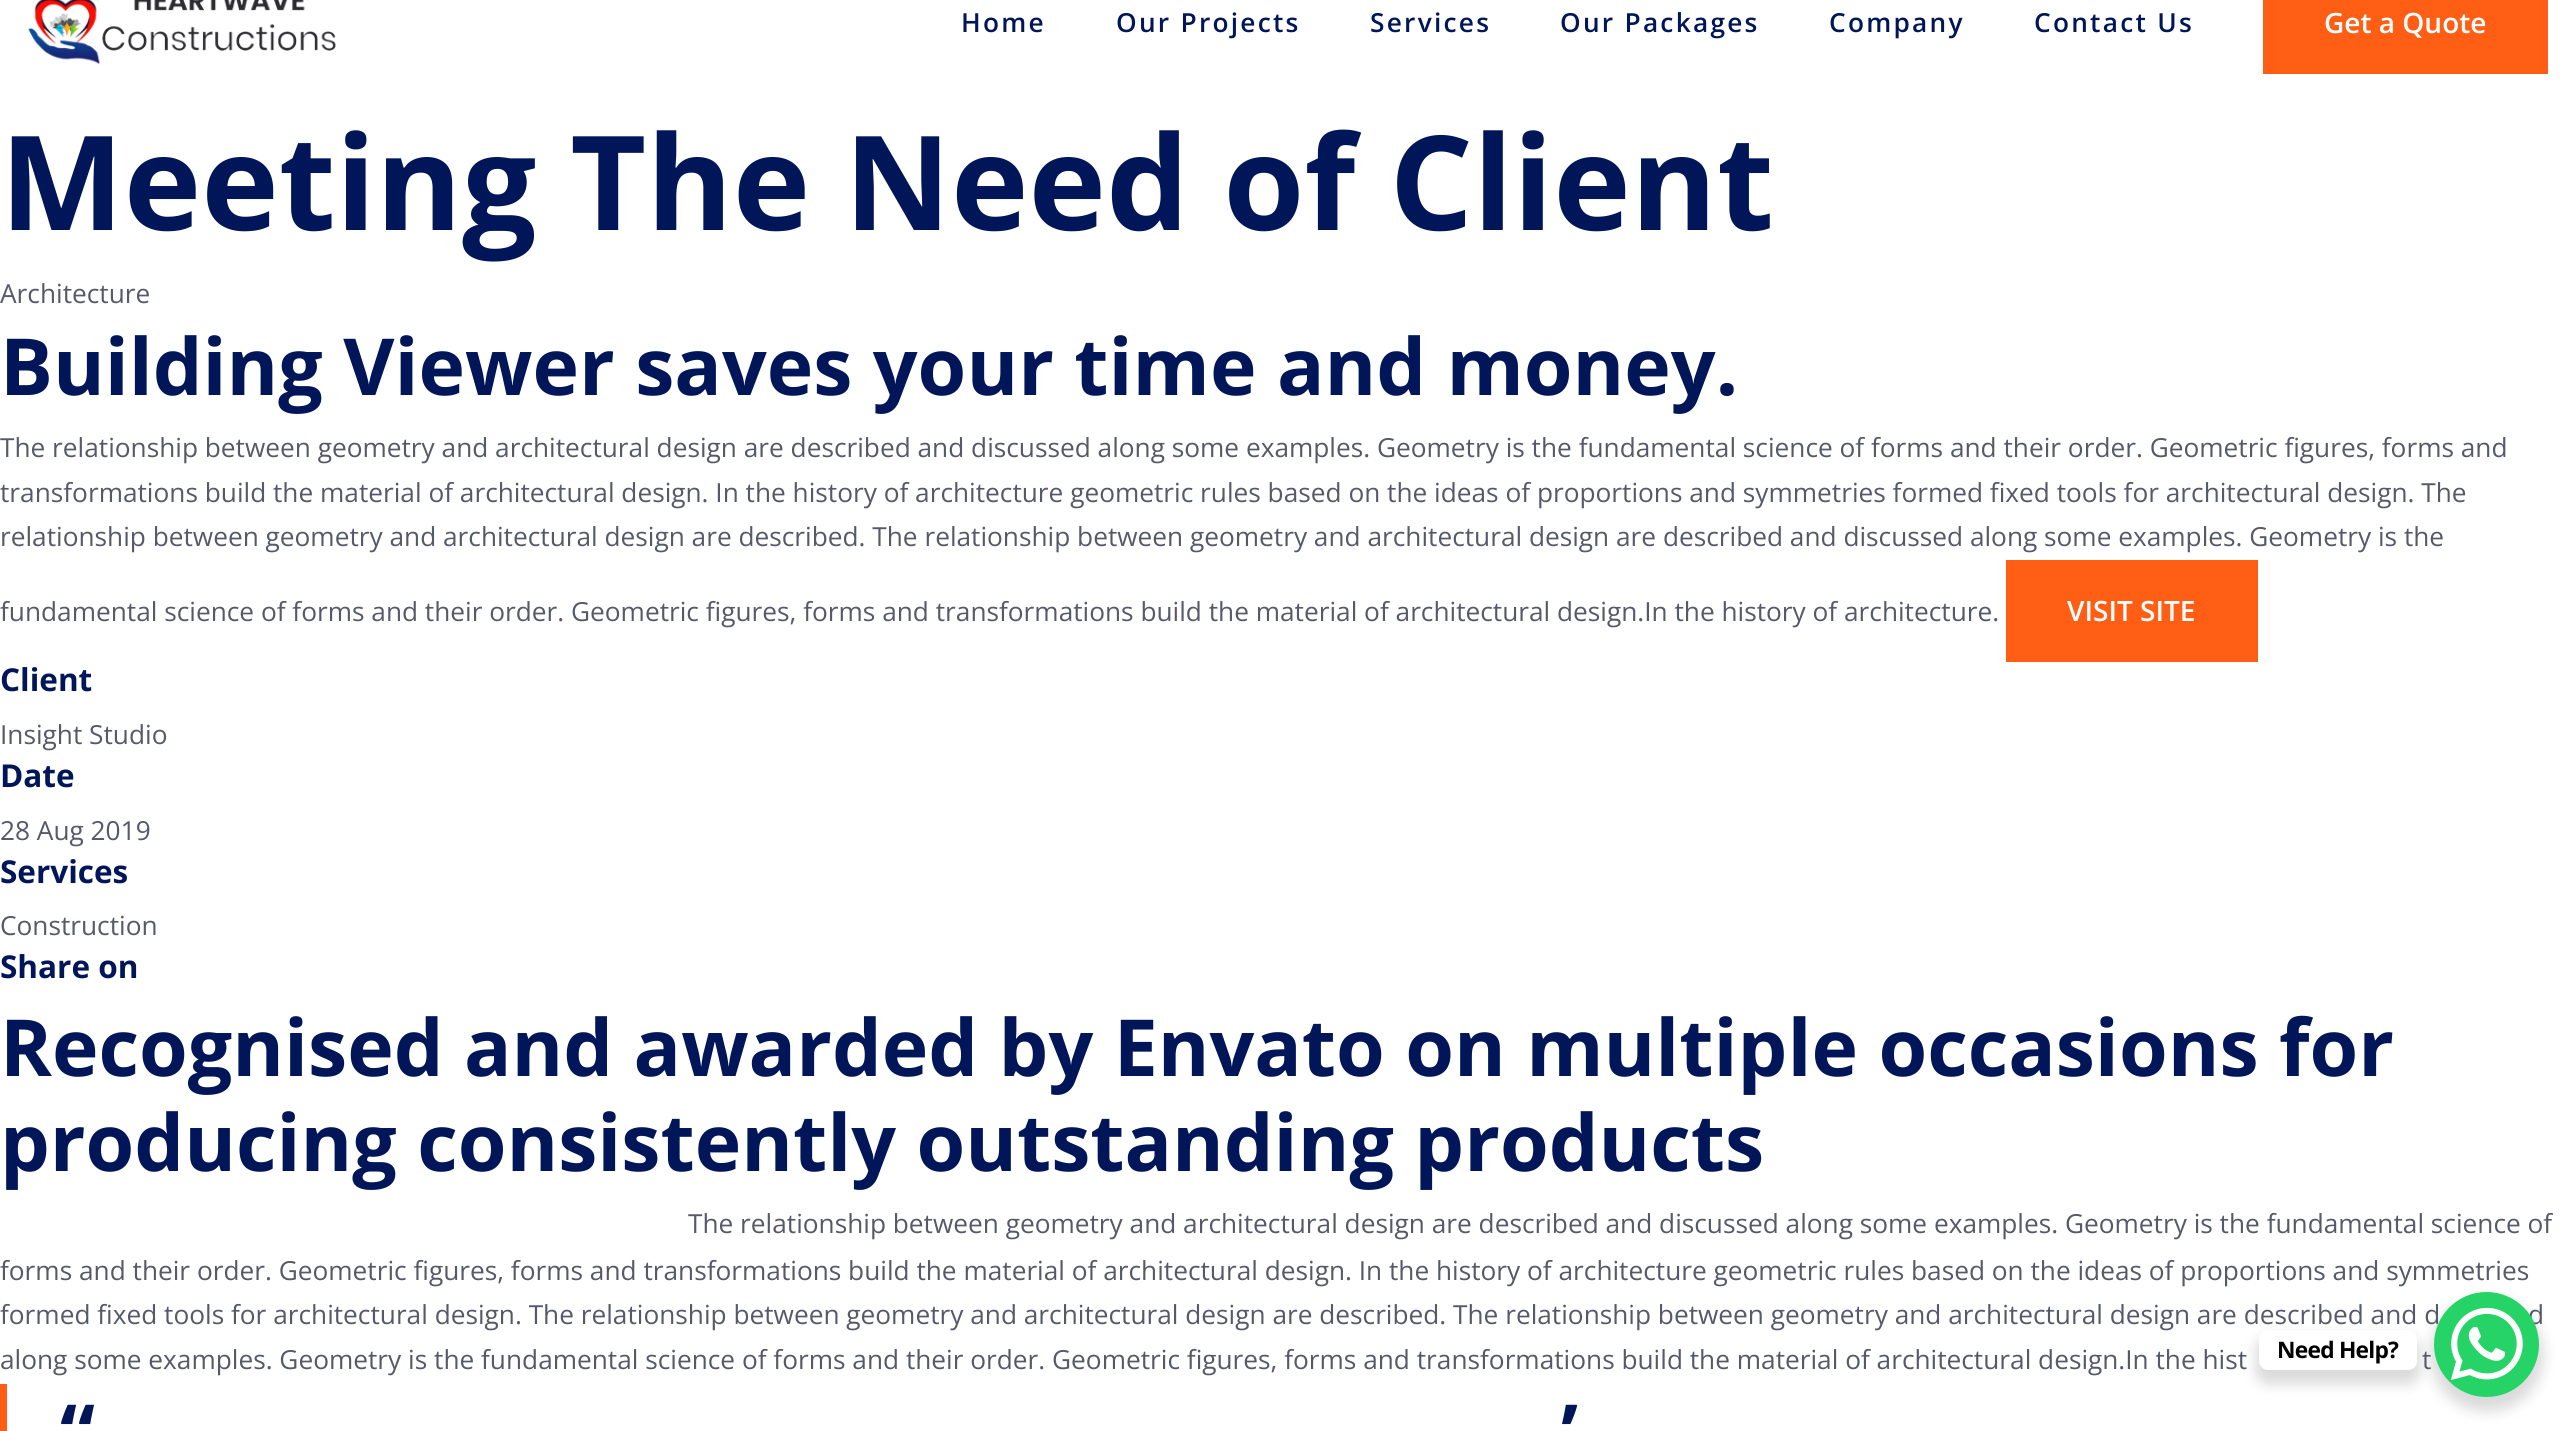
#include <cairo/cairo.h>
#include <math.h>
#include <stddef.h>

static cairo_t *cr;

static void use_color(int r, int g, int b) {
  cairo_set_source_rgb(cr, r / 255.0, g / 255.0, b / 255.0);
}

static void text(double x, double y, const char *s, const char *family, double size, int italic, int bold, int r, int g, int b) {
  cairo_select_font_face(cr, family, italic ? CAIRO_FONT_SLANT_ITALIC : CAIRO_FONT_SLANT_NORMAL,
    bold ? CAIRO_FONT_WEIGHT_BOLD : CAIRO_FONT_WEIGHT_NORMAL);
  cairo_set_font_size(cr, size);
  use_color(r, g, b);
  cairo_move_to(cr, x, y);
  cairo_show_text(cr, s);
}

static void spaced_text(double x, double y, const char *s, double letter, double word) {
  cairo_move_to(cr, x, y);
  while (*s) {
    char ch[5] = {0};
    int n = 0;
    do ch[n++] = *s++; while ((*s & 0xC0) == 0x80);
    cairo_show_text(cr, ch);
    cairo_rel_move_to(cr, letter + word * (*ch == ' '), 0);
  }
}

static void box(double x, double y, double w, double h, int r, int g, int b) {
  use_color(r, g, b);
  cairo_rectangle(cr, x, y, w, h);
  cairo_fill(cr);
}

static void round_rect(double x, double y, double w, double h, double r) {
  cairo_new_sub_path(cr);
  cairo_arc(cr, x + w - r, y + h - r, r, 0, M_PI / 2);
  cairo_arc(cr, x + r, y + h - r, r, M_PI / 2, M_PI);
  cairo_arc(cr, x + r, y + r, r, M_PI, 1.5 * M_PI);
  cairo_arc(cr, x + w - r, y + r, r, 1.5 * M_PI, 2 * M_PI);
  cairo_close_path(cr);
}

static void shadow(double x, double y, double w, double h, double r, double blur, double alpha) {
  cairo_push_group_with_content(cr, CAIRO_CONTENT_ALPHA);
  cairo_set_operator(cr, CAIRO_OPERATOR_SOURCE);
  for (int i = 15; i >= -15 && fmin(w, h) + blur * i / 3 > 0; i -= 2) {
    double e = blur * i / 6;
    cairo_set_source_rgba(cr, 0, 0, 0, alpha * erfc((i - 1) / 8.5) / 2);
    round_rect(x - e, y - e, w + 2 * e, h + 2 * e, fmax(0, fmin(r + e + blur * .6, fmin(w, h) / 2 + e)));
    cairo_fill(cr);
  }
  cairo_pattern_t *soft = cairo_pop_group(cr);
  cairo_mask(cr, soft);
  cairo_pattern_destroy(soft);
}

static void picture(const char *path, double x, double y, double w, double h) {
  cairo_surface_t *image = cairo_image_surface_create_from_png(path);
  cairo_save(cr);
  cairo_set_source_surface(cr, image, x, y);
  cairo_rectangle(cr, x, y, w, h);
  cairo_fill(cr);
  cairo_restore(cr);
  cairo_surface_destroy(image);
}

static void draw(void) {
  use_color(255, 255, 255);
  cairo_paint(cr);
  picture("img_01.png", 28, 0, 308, 65);
  box(2263, 0, 285, 74, 255, 94, 20);
  box(2006, 560, 252, 102, 255, 94, 20);
  use_color(0, 0, 0);
  shadow(2431, 1299, 112, 112, 56, 7, 0.15);
  box(0, 1384, 7, 47, 255, 94, 20);
  cairo_select_font_face(cr, "Open Sans SemiBold", CAIRO_FONT_SLANT_NORMAL, CAIRO_FONT_WEIGHT_NORMAL);
  cairo_set_font_size(cr, 26.25);
  use_color(0, 22, 89);
  spaced_text(961, 32, "Home", 2.25, 0);
  spaced_text(1116, 32, "Our Projects", 2.25, 0);
  spaced_text(1370, 32, "Services", 2.25, 0);
  spaced_text(1560, 32, "Our Packages", 2.25, 0);
  spaced_text(1829, 32, "Company", 2.25, 0);
  spaced_text(2034, 32, "Contact Us", 2.25, 0);
  text(2324, 33, "Get a Quote", "Open Sans SemiBold", 28, 0, 0, 255, 255, 255);
  text(0, 230, "Meeting The Need of Client", "Open Sans", 131.25, 0, 1, 0, 22, 89);
  text(0, 303, "Architecture", "Open Sans", 26.25, 0, 0, 86, 89, 105);
  text(0, 395, "Building Viewer saves your time and money.", "Open Sans", 78.75, 0, 1, 0, 22, 89);
  text(0, 457, "The relationship between geometry and architectural design are described and discussed along some examples. Geometry is the fundamental science of forms and their order. Geometric figures, forms and", "Open Sans", 26.25, 0, 0, 86, 89, 105);
  text(0, 502, "transformations build the material of architectural design. In the history of architecture geometric rules based on the ideas of proportions and symmetries formed fixed tools for architectural design. The", "Open Sans", 26.25, 0, 0, 86, 89, 105);
  text(0, 546, "relationship between geometry and architectural design are described. The relationship between geometry and architectural design are described and discussed along some examples. Geometry is the", "Open Sans", 26.25, 0, 0, 86, 89, 105);
  text(0, 621, "fundamental science of forms and their order. Geometric figures, forms and transformations build the material of architectural design.In the history of architecture.", "Open Sans", 26.25, 0, 0, 86, 89, 105);
  text(2067, 621, "VISIT SITE", "Open Sans SemiBold", 28, 0, 0, 255, 255, 255);
  text(0, 691, "Client", "Open Sans", 31.5, 0, 1, 0, 22, 89);
  text(0, 744, "Insight Studio", "Open Sans", 26.25, 0, 0, 86, 89, 105);
  text(0, 787, "Date", "Open Sans", 31.5, 0, 1, 0, 22, 89);
  text(0, 840, "28 Aug 2019", "Open Sans", 26.25, 0, 0, 86, 89, 105);
  text(0, 883, "Services", "Open Sans", 31.5, 0, 1, 0, 22, 89);
  text(0, 935, "Construction", "Open Sans", 26.25, 0, 0, 86, 89, 105);
  text(0, 978, "Share on", "Open Sans", 31.5, 0, 1, 0, 22, 89);
  text(0, 1076, "Recognised and awarded by Envato on multiple occasions for", "Open Sans", 78.75, 0, 1, 0, 22, 89);
  text(0, 1171, "producing consistently outstanding products", "Open Sans", 78.75, 0, 1, 0, 22, 89);
  text(688, 1233, "The relationship between geometry and architectural design are described and discussed along some examples. Geometry is the fundamental science of", "Open Sans", 26.25, 0, 0, 86, 89, 105);
  text(0, 1280, "forms and their order. Geometric figures, forms and transformations build the material of architectural design. In the history of architecture geometric rules based on the ideas of proportions and symmetries", "Open Sans", 26.25, 0, 0, 86, 89, 105);
  text(0, 1324, "formed fixed tools for architectural design. The relationship between geometry and architectural design are described. The relationship between geometry and architectural design are described and d", "Open Sans", 26.25, 0, 0, 86, 89, 105);
  text(2528, 1324, "d", "Open Sans", 26.25, 0, 0, 86, 89, 105);
  text(0, 1369, "along some examples. Geometry is the fundamental science of forms and their order. Geometric figures, forms and transformations build the material of architectural design.In the hist", "Open Sans", 26.25, 0, 0, 86, 89, 105);
  use_color(37, 211, 102);
  cairo_new_path(cr);
  cairo_arc(cr, 2486.5, 1344.5, 52.5, 0, 2 * M_PI);
  cairo_fill(cr);
  use_color(0, 0, 0);
  shadow(2256, 1337, 164, 47, 12, 7, 0.15);
  use_color(255, 255, 255);
  round_rect(2259, 1330, 158, 40, 9);
  cairo_fill(cr);
  cairo_select_font_face(cr, "Open Sans", CAIRO_FONT_SLANT_NORMAL, CAIRO_FONT_WEIGHT_BOLD);
  cairo_set_font_size(cr, 22.75);
  use_color(0, 0, 0);
  spaced_text(2277, 1358, "Need Help?", -0.75, 0);
  picture("img_02.png", 2451, 1307, 72, 73);
  text(2422, 1369, "t", "Open Sans", 26.25, 0, 0, 86, 89, 105);
  text(60, 1461, "“", "Open Sans", 78.75, 0, 1, 0, 22, 89);
  text(1561, 1461, "’", "Open Sans", 78.75, 0, 1, 0, 22, 89);
}

int main(void) {
  cairo_surface_t *surface = cairo_image_surface_create(CAIRO_FORMAT_RGB24, 2574, 1431);
  cr = cairo_create(surface);
  cairo_font_options_t *options = cairo_font_options_create();
  cairo_font_options_set_hint_metrics(options, CAIRO_HINT_METRICS_OFF);
  cairo_font_options_set_hint_style(options, CAIRO_HINT_STYLE_NONE);
  cairo_set_font_options(cr, options);
  cairo_set_miter_limit(cr, 4);
  draw();
  cairo_surface_write_to_png(surface, "out.png");
  cairo_font_options_destroy(options);
  cairo_destroy(cr);
  cairo_surface_destroy(surface);
  return 0;
}
